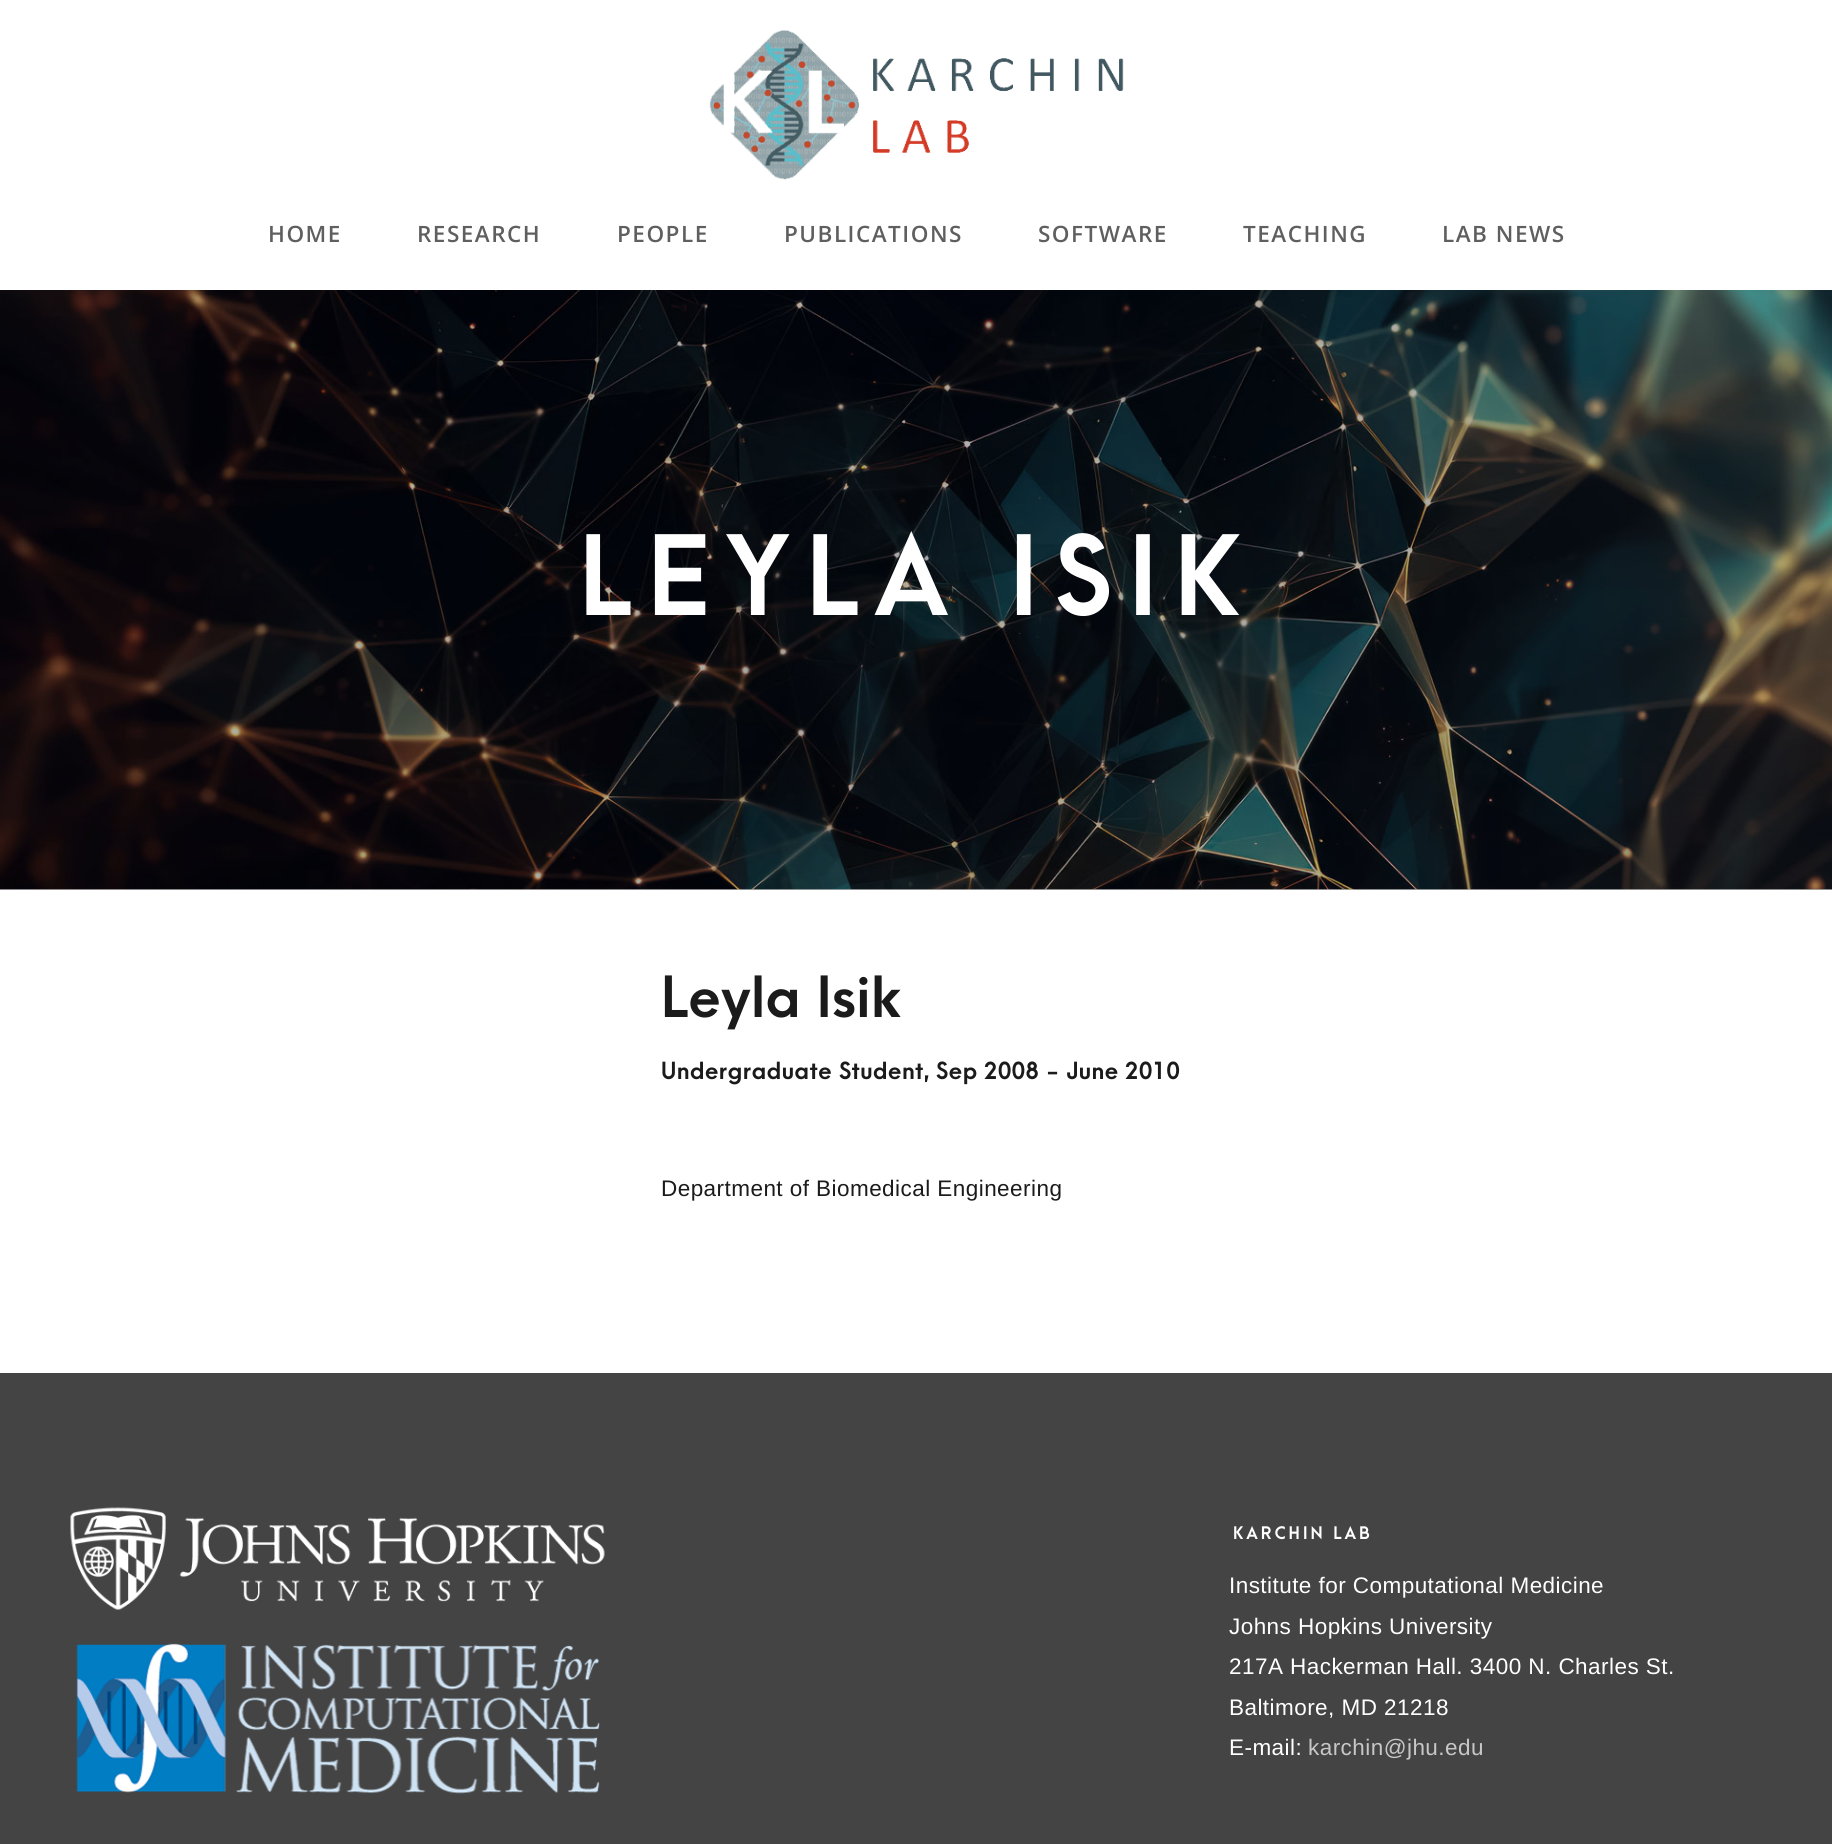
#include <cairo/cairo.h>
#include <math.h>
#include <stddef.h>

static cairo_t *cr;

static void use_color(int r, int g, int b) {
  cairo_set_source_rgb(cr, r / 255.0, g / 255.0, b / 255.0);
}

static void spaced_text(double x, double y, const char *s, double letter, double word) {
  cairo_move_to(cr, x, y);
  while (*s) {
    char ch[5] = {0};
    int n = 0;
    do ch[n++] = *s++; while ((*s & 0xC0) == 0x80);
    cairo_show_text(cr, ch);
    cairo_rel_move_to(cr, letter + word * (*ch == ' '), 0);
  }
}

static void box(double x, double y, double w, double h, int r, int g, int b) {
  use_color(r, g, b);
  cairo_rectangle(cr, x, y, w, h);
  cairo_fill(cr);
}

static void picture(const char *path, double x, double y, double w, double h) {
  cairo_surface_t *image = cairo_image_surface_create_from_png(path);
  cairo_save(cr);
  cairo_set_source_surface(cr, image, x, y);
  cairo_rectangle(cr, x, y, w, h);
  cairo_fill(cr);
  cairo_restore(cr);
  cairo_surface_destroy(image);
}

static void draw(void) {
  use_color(255, 255, 255);
  cairo_paint(cr);
  box(0, 889, 1832, 1, 179, 179, 179);
  picture("img_01.png", 709, 30, 415, 150);
  picture("img_02.png", 0, 290, 1832, 600);
  box(0, 1373, 1832, 471, 68, 68, 68);
  picture("img_03.png", 70, 1507, 535, 103);
  picture("img_04.png", 76, 1643, 524, 151);
  cairo_select_font_face(cr, "Open Sans SemiBold", CAIRO_FONT_SLANT_NORMAL, CAIRO_FONT_WEIGHT_NORMAL);
  cairo_set_font_size(cr, 22.5);
  use_color(95, 95, 95);
  spaced_text(268, 242, "HOME", 1.5, 0);
  spaced_text(417, 242, "RESEARCH", 1.5, 0);
  spaced_text(617, 242, "PEOPLE", 1.5, 0);
  spaced_text(784, 242, "PUBLICATIONS", 1.5, 0);
  spaced_text(1038, 242, "SOFTWARE", 1.5, 0);
  spaced_text(1243, 242, "TEACHING", 1.5, 0);
  spaced_text(1442, 242, "LAB NEWS", 1.5, 0);
  cairo_select_font_face(cr, "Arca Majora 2 Black", CAIRO_FONT_SLANT_NORMAL, CAIRO_FONT_WEIGHT_NORMAL);
  cairo_set_font_size(cr, 105);
  use_color(255, 255, 255);
  spaced_text(578, 615, "Leyla Isik", 15, 0);
  cairo_select_font_face(cr, "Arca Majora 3", CAIRO_FONT_SLANT_NORMAL, CAIRO_FONT_WEIGHT_BOLD);
  cairo_set_font_size(cr, 54);
  use_color(27, 27, 27);
  spaced_text(661, 1017, "Leyla Isik", 0.45, 0);
  cairo_set_font_size(cr, 22.5);
  spaced_text(661, 1079, "Undergraduate Student, Sep 2008 - June 2010", 0.45, 0);
  cairo_select_font_face(cr, "Liberation Sans", CAIRO_FONT_SLANT_NORMAL, CAIRO_FONT_WEIGHT_NORMAL);
  spaced_text(661, 1196, "Department of Biomedical Engineering", 0.45, 0);
  cairo_select_font_face(cr, "Arca Majora 3", CAIRO_FONT_SLANT_NORMAL, CAIRO_FONT_WEIGHT_BOLD);
  cairo_set_font_size(cr, 16.5);
  use_color(255, 255, 255);
  spaced_text(1233, 1539, "KARCHIN LAB", 3, 0);
  cairo_select_font_face(cr, "Liberation Sans", CAIRO_FONT_SLANT_NORMAL, CAIRO_FONT_WEIGHT_NORMAL);
  cairo_set_font_size(cr, 22.5);
  spaced_text(1229, 1593, "Institute for Computational Medicine", 0.45, 0);
  spaced_text(1229, 1634, "Johns Hopkins University", 0.45, 0);
  spaced_text(1229, 1674, "217A Hackerman Hall. 3400 N. Charles St.", 0.45, 0);
  spaced_text(1229, 1715, "Baltimore, MD 21218", 0.45, 0);
  spaced_text(1229, 1755, "E-mail:", 0.45, 0);
  use_color(199, 199, 199);
  spaced_text(1308, 1755, "karchin@jhu.edu", 0.45, 0);
}

int main(void) {
  cairo_surface_t *surface = cairo_image_surface_create(CAIRO_FORMAT_RGB24, 1832, 1844);
  cr = cairo_create(surface);
  cairo_font_options_t *options = cairo_font_options_create();
  cairo_font_options_set_hint_metrics(options, CAIRO_HINT_METRICS_OFF);
  cairo_font_options_set_hint_style(options, CAIRO_HINT_STYLE_NONE);
  cairo_set_font_options(cr, options);
  cairo_set_miter_limit(cr, 4);
  draw();
  cairo_surface_write_to_png(surface, "out.png");
  cairo_font_options_destroy(options);
  cairo_destroy(cr);
  cairo_surface_destroy(surface);
  return 0;
}
